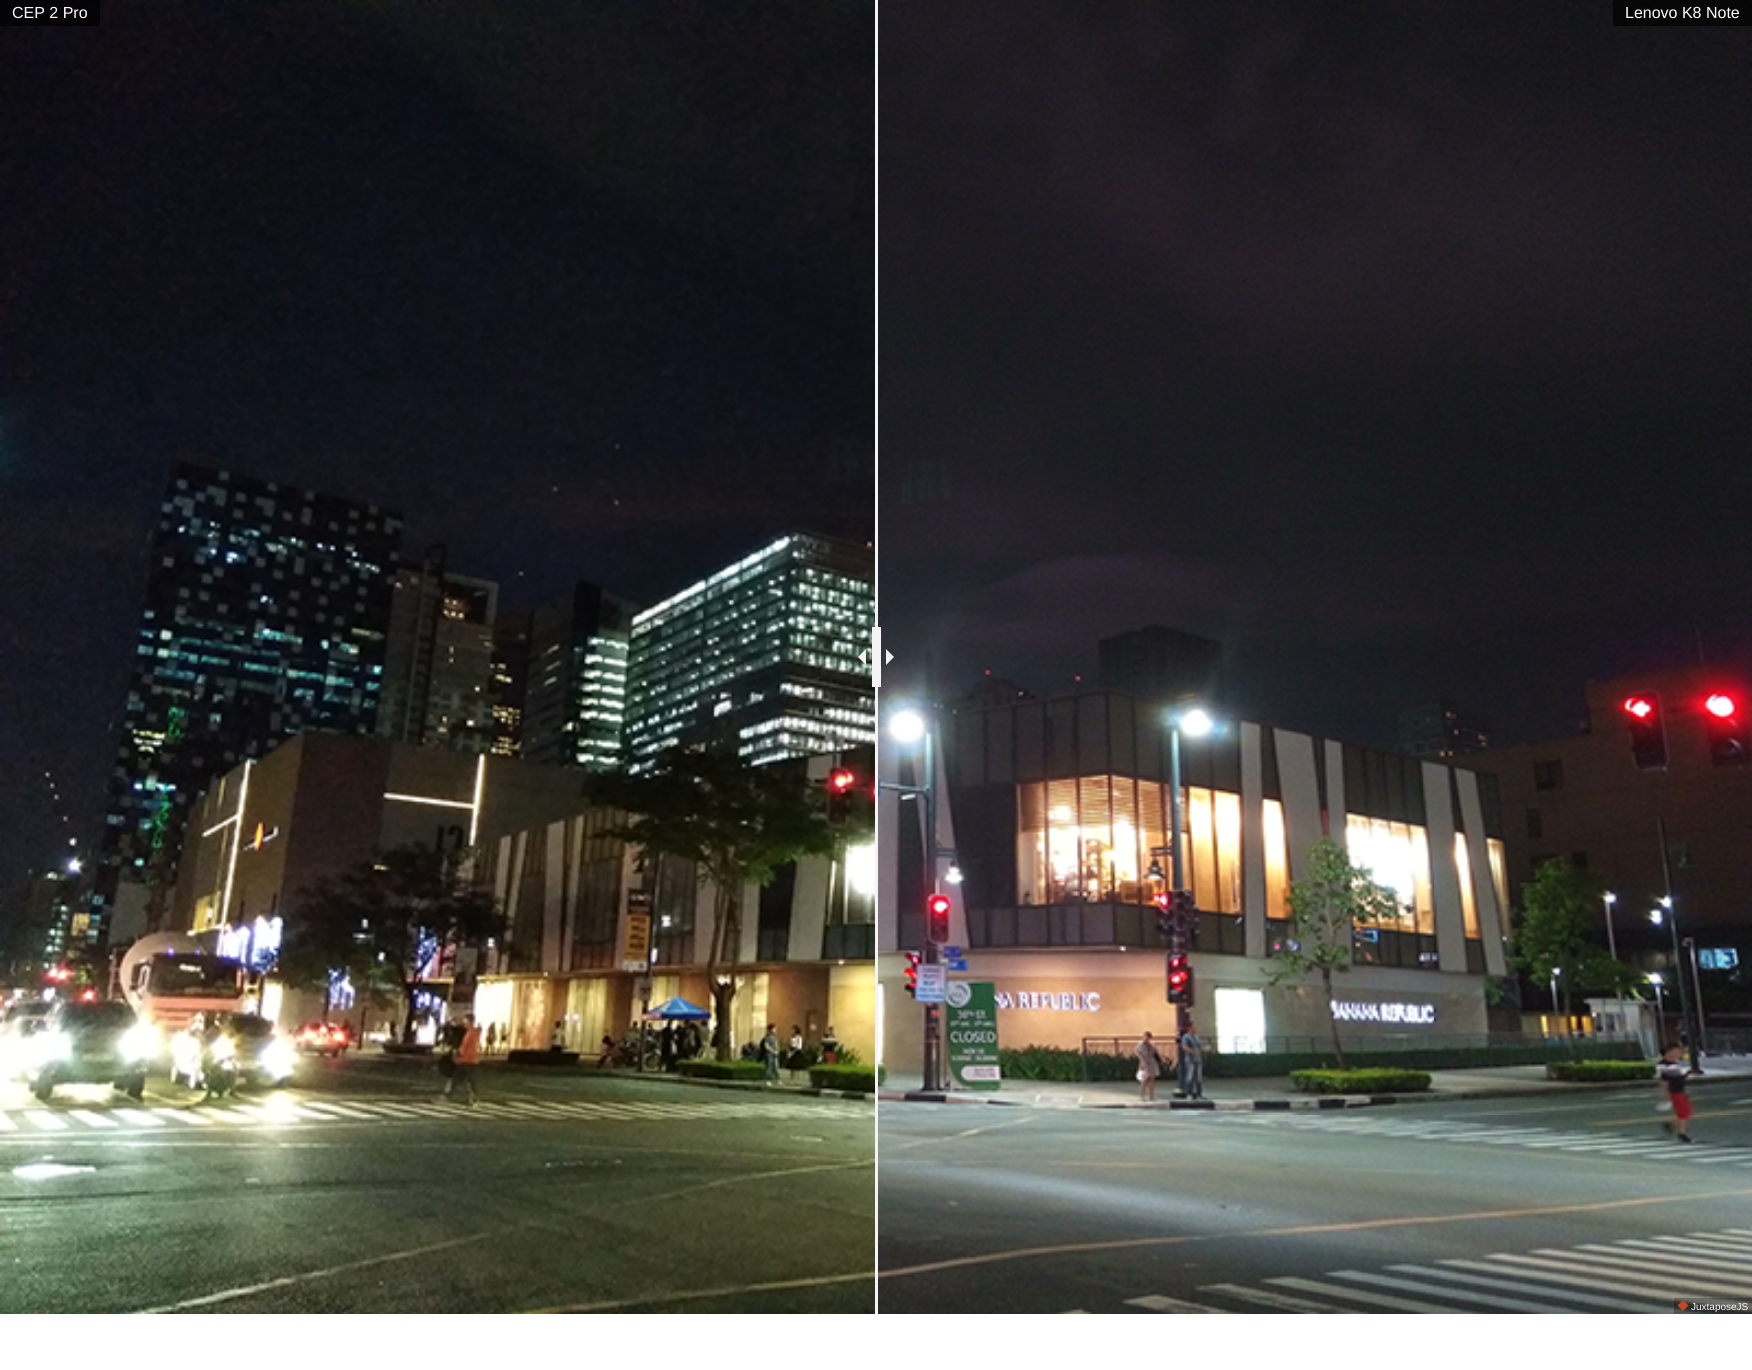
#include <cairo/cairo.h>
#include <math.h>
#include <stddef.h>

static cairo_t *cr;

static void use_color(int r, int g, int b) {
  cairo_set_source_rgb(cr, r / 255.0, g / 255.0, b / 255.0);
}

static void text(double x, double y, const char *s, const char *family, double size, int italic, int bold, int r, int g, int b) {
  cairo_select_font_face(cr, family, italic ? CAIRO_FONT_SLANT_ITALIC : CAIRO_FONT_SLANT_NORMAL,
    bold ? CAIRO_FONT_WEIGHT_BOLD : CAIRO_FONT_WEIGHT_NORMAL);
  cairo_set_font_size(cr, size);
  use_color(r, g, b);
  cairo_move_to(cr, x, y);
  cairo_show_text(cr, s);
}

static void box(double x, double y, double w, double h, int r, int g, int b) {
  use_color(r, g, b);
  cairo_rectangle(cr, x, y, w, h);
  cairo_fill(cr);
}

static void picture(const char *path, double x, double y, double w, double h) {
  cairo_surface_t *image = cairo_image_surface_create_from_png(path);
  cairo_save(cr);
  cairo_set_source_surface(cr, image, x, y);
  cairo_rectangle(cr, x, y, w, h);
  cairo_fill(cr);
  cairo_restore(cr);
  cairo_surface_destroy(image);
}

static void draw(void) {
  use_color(255, 255, 255);
  cairo_paint(cr);
  picture("img_01.png", 0, 0, 875, 1314);
  cairo_set_source_rgba(cr, 0, 0, 0, 0.7);
  cairo_rectangle(cr, 0, 0, 100, 26);
  cairo_fill(cr);
  use_color(243, 243, 243);
  cairo_new_path(cr);
  cairo_move_to(cr, 866, 649);
  cairo_line_to(cr, 866, 665);
  cairo_line_to(cr, 858, 657);
  cairo_close_path(cr);
  cairo_fill(cr);
  box(875, 0, 3, 1314, 243, 243, 243);
  picture("img_02.png", 878, 0, 874, 1314);
  box(872, 627, 9, 60, 243, 243, 243);
  cairo_new_path(cr);
  cairo_move_to(cr, 886, 665);
  cairo_line_to(cr, 886, 649);
  cairo_line_to(cr, 894, 657);
  cairo_close_path(cr);
  cairo_fill(cr);
  cairo_set_source_rgba(cr, 0, 0, 0, 0.7);
  cairo_rectangle(cr, 1613, 0, 139, 26);
  cairo_fill(cr);
  cairo_set_source_rgba(cr, 0, 0, 0, 0.25);
  cairo_rectangle(cr, 1674, 1298, 78, 16);
  cairo_fill(cr);
  use_color(195, 69, 40);
  cairo_new_path(cr);
  cairo_move_to(cr, 1683, 1300);
  cairo_line_to(cr, 1688.5, 1305.5);
  cairo_line_to(cr, 1683, 1311);
  cairo_line_to(cr, 1677.5, 1305.5);
  cairo_close_path(cr);
  cairo_fill(cr);
  text(12, 18, "CEP 2 Pro", "Liberation Sans", 16, 0, 0, 255, 255, 255);
  text(1625, 18, "Lenovo K8 Note", "Liberation Sans", 16, 0, 0, 255, 255, 255);
  text(1691, 1310, "JuxtaposeJS", "Liberation Sans", 10, 0, 0, 255, 255, 255);
}

int main(void) {
  cairo_surface_t *surface = cairo_image_surface_create(CAIRO_FORMAT_RGB24, 1752, 1370);
  cr = cairo_create(surface);
  cairo_font_options_t *options = cairo_font_options_create();
  cairo_font_options_set_hint_metrics(options, CAIRO_HINT_METRICS_OFF);
  cairo_font_options_set_hint_style(options, CAIRO_HINT_STYLE_NONE);
  cairo_set_font_options(cr, options);
  cairo_set_miter_limit(cr, 4);
  draw();
  cairo_surface_write_to_png(surface, "out.png");
  cairo_font_options_destroy(options);
  cairo_destroy(cr);
  cairo_surface_destroy(surface);
  return 0;
}
